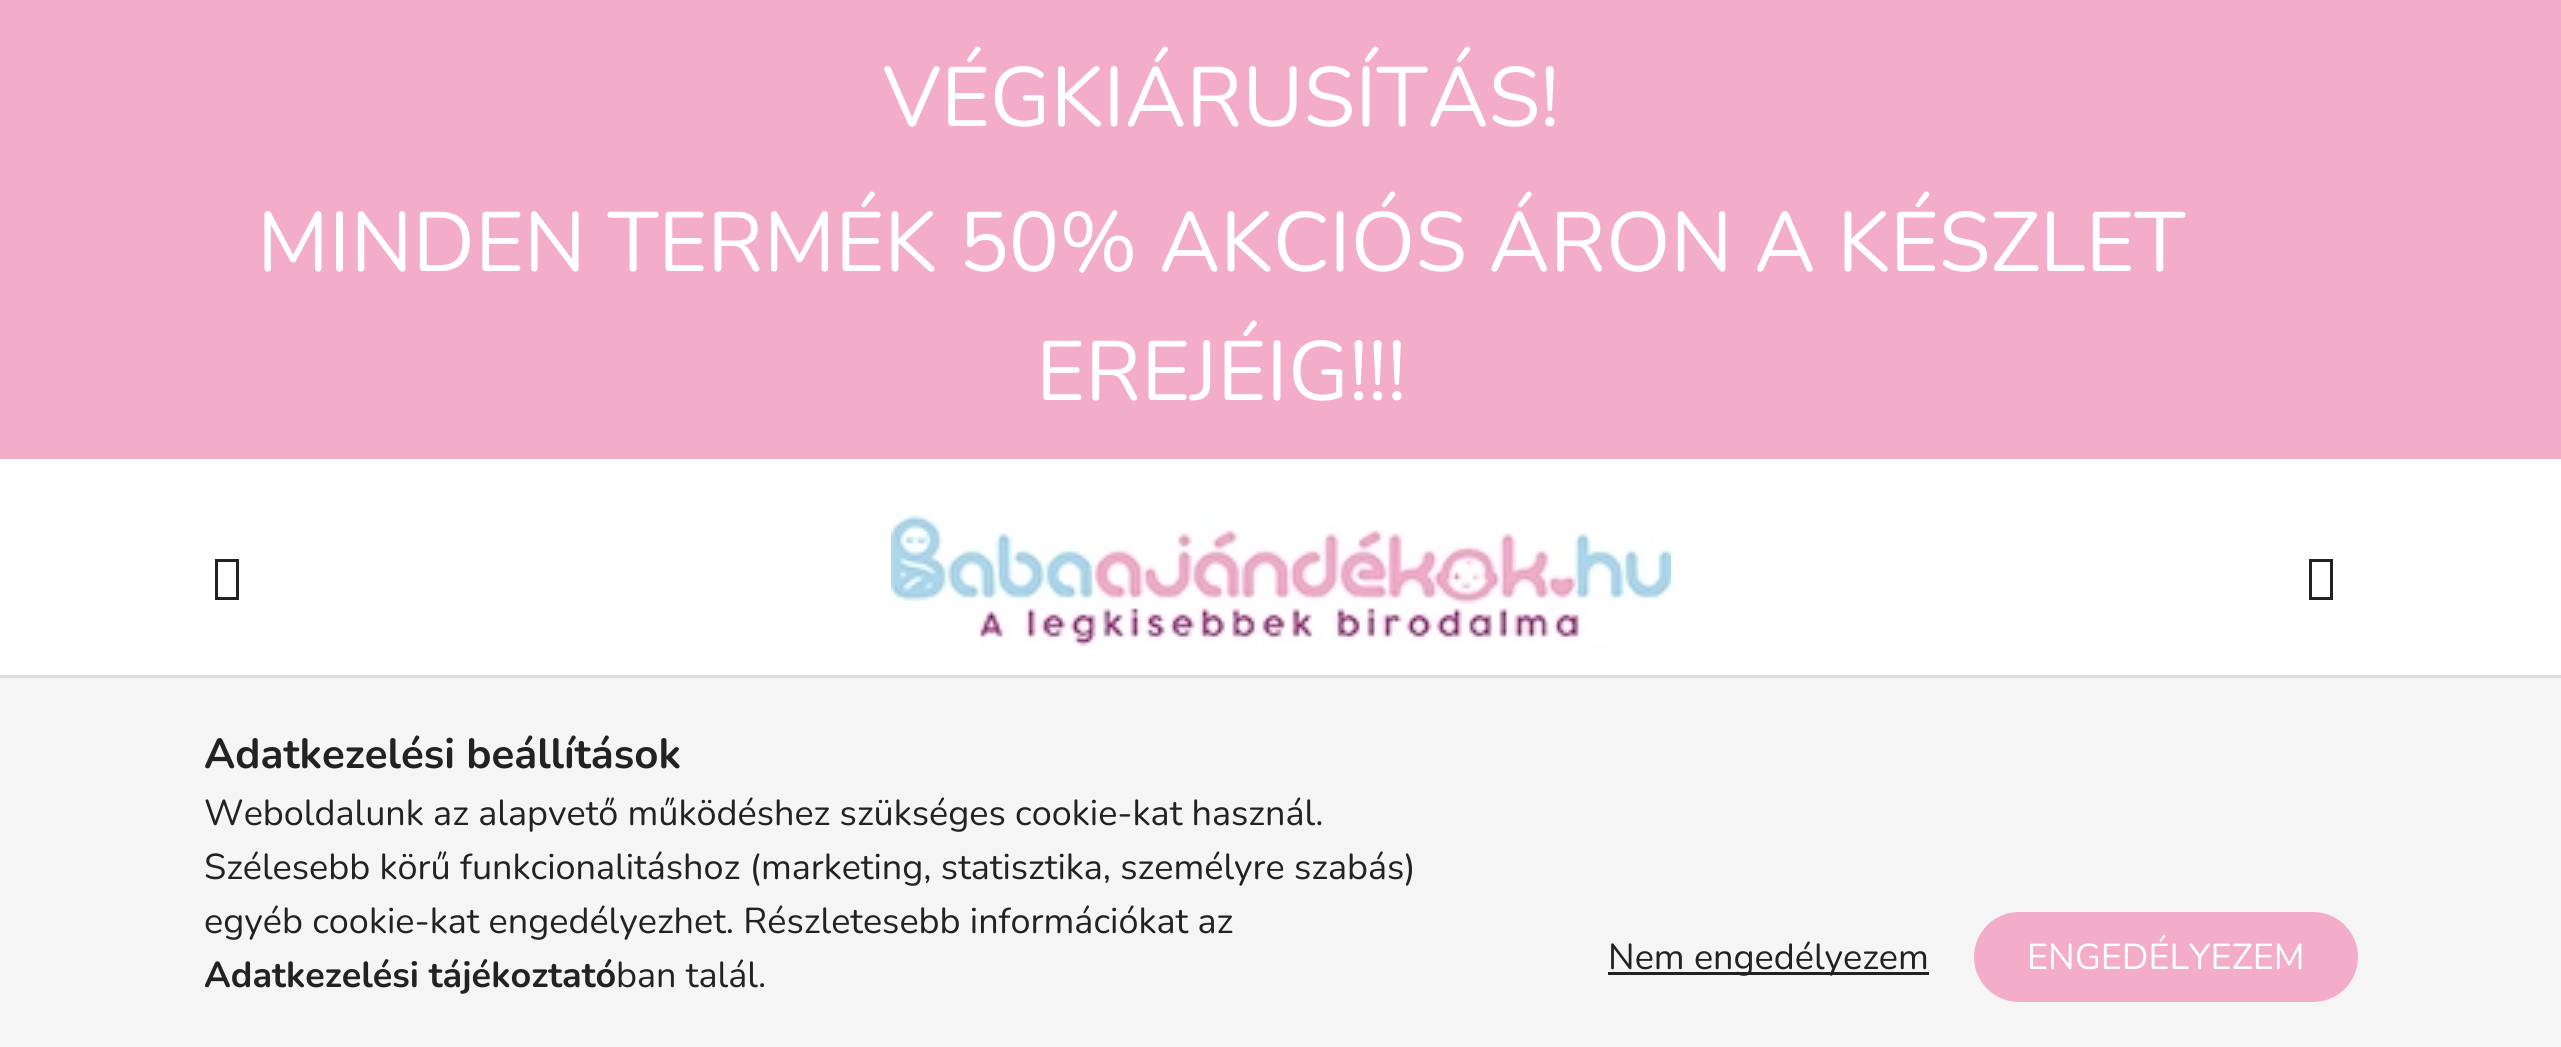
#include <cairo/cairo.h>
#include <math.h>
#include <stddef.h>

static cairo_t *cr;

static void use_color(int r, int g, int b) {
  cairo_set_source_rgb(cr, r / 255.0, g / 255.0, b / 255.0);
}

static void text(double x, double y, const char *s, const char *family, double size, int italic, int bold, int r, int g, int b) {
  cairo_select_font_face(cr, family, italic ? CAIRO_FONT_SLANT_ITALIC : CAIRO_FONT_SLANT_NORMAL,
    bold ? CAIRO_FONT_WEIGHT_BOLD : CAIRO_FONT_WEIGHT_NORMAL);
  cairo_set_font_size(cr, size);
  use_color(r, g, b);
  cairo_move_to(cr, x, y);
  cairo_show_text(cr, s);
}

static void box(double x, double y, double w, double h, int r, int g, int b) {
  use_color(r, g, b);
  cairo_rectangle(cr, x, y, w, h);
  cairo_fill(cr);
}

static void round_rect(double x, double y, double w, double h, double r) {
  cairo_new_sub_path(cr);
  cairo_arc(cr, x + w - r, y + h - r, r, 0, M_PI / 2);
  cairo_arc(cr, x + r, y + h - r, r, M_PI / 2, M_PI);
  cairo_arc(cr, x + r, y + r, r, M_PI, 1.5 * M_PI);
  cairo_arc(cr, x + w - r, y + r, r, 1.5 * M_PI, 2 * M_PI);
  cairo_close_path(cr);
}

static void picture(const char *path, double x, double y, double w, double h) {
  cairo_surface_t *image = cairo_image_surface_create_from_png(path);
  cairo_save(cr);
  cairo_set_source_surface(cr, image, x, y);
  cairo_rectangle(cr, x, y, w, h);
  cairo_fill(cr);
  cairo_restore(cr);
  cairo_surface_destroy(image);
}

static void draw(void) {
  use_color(255, 255, 255);
  cairo_paint(cr);
  box(0, 0, 2561, 459, 243, 173, 200);
  use_color(34, 34, 34);
  cairo_new_path(cr);
  cairo_move_to(cr, 215, 600);
  cairo_line_to(cr, 215, 559);
  cairo_line_to(cr, 239, 559);
  cairo_line_to(cr, 239, 600);
  cairo_close_path(cr);
  cairo_move_to(cr, 218, 597);
  cairo_line_to(cr, 236, 597);
  cairo_line_to(cr, 236, 562);
  cairo_line_to(cr, 218, 562);
  cairo_close_path(cr);
  cairo_fill(cr);
  picture("img_01.png", 891, 513, 780, 135);
  cairo_new_path(cr);
  cairo_move_to(cr, 2309, 600);
  cairo_line_to(cr, 2309, 559);
  cairo_line_to(cr, 2333, 559);
  cairo_line_to(cr, 2333, 600);
  cairo_close_path(cr);
  cairo_move_to(cr, 2312, 597);
  cairo_line_to(cr, 2330, 597);
  cairo_line_to(cr, 2330, 562);
  cairo_line_to(cr, 2312, 562);
  cairo_close_path(cr);
  cairo_fill(cr);
  box(0, 678, 2561, 369, 245, 245, 245);
  box(0, 675, 2561, 3, 221, 221, 221);
  box(1608, 972, 321, 3, 34, 34, 34);
  use_color(243, 173, 200);
  round_rect(1975.5, 913.5, 381, 87, 43.5);
  cairo_fill_preserve(cr);
  cairo_set_line_width(cr, 3);
  cairo_stroke(cr);
  text(883, 126, "VÉGKIÁRUSÍTÁS!", "Nunito", 84, 0, 0, 255, 255, 255);
  text(257, 271, "MINDEN TERMÉK 50% AKCIÓS ÁRON A KÉSZLET", "Nunito", 84, 0, 0, 255, 255, 255);
  text(1036, 400, "EREJÉIG!!!", "Nunito", 84, 0, 0, 255, 255, 255);
  text(204, 768, "Adatkezelési beállítások", "Nunito", 42, 0, 1, 34, 34, 34);
  text(204, 825, "Weboldalunk az alapvető működéshez szükséges cookie-kat használ.", "Nunito", 36, 0, 0, 34, 34, 34);
  text(204, 879, "Szélesebb körű funkcionalitáshoz (marketing, statisztika, személyre szabás)", "Nunito", 36, 0, 0, 34, 34, 34);
  text(204, 933, "egyéb cookie-kat engedélyezhet. Részletesebb információkat az", "Nunito", 36, 0, 0, 34, 34, 34);
  text(204, 987, "Adatkezelési tájékoztató", "Nunito", 36, 0, 1, 34, 34, 34);
  text(616, 987, "ban talál.", "Nunito", 36, 0, 0, 34, 34, 34);
  text(1608, 969, "Nem engedélyezem", "Nunito", 36, 0, 0, 34, 34, 34);
  text(2027, 969, "ENGEDÉLYEZEM", "Nunito", 36, 0, 0, 255, 255, 255);
}

int main(void) {
  cairo_surface_t *surface = cairo_image_surface_create(CAIRO_FORMAT_RGB24, 2561, 1047);
  cr = cairo_create(surface);
  cairo_font_options_t *options = cairo_font_options_create();
  cairo_font_options_set_hint_metrics(options, CAIRO_HINT_METRICS_OFF);
  cairo_font_options_set_hint_style(options, CAIRO_HINT_STYLE_NONE);
  cairo_set_font_options(cr, options);
  cairo_set_miter_limit(cr, 4);
  draw();
  cairo_surface_write_to_png(surface, "out.png");
  cairo_font_options_destroy(options);
  cairo_destroy(cr);
  cairo_surface_destroy(surface);
  return 0;
}
